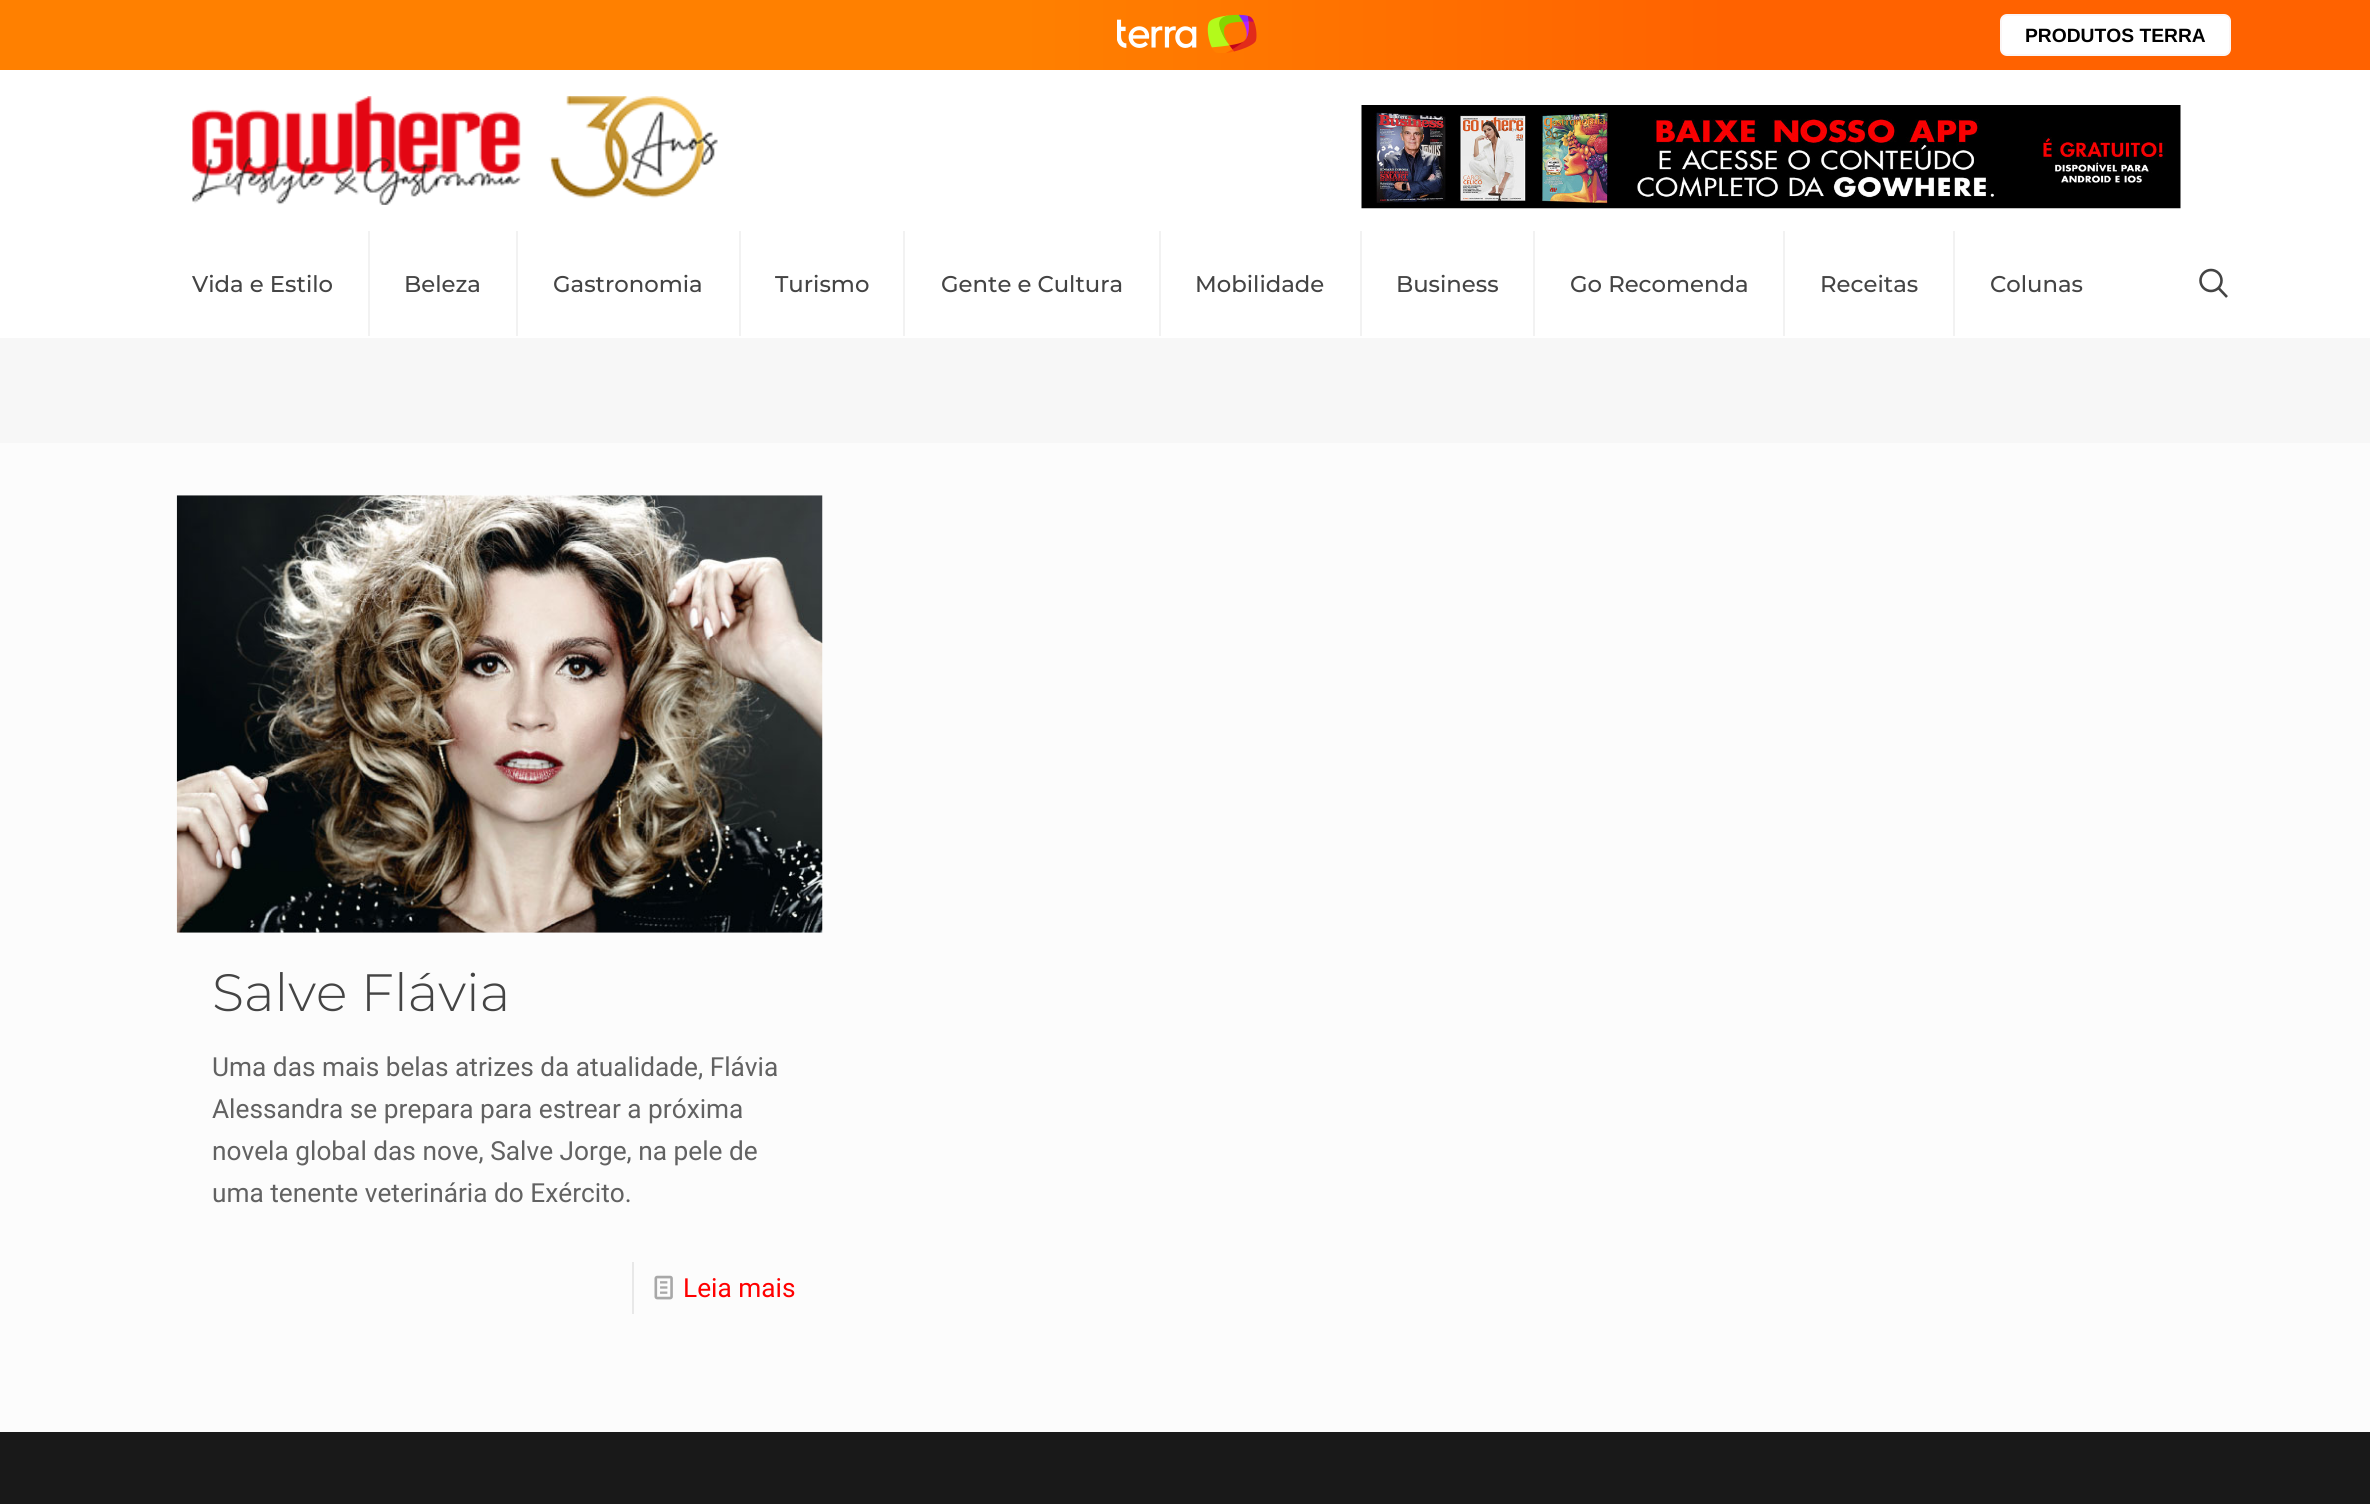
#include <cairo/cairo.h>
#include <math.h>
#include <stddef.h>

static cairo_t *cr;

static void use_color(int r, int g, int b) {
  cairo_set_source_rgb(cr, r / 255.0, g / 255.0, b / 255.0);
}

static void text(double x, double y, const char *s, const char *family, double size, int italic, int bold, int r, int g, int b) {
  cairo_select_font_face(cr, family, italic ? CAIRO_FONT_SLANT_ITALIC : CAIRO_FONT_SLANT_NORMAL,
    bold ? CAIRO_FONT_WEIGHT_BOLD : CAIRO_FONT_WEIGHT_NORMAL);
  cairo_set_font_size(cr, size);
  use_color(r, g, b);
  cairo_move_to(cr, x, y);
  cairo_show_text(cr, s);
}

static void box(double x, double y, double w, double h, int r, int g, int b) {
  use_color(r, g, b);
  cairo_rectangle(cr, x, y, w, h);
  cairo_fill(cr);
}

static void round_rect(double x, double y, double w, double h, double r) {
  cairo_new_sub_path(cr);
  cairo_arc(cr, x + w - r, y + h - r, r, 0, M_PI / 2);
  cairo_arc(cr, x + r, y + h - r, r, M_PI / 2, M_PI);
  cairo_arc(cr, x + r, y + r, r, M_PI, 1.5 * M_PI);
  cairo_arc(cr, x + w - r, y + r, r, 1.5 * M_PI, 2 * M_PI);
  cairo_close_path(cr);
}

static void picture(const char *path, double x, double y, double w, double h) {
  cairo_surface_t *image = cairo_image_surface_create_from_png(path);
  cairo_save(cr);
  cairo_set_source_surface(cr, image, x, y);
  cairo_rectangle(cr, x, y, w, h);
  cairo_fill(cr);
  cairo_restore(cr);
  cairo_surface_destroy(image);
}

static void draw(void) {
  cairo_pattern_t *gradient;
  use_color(252, 252, 252);
  cairo_paint(cr);
  gradient = cairo_pattern_create_linear(0, 35, 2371, 35);
  cairo_pattern_add_color_stop_rgba(gradient, 0.43, 1, 0.502, 0, 1);
  cairo_pattern_add_color_stop_rgba(gradient, 0.73, 1, 0.384, 0, 1);
  cairo_set_source(cr, gradient);
  cairo_pattern_destroy(gradient);
  cairo_rectangle(cr, 0, 0, 2370, 70);
  cairo_fill(cr);
  picture("img_01.png", 1117, 14, 140, 39);
  use_color(255, 255, 255);
  round_rect(2001, 15, 229, 40, 6);
  cairo_fill_preserve(cr);
  use_color(251, 246, 246);
  cairo_stroke(cr);
  box(0, 70, 2370, 268, 255, 255, 255);
  picture("img_02.png", 192, 96, 526, 109);
  picture("img_03.png", 1361, 105, 820, 104);
  box(368, 231, 2, 105, 242, 242, 242);
  box(516, 231, 2, 105, 242, 242, 242);
  box(739, 231, 2, 105, 242, 242, 242);
  box(903, 231, 2, 105, 242, 242, 242);
  box(1159, 231, 2, 105, 242, 242, 242);
  box(1360, 231, 2, 105, 242, 242, 242);
  box(1533, 231, 2, 105, 242, 242, 242);
  box(1783, 231, 2, 105, 242, 242, 242);
  box(1953, 231, 2, 105, 242, 242, 242);
  cairo_arc(cr, 2211, 280.5, 10.5, 0, 2 * M_PI);
  use_color(68, 68, 68);
  cairo_set_line_width(cr, 2.6);
  cairo_stroke(cr);
  cairo_new_path(cr);
  cairo_move_to(cr, 2218.5, 288);
  cairo_line_to(cr, 2227, 297);
  cairo_stroke(cr);
  box(0, 338, 2370, 105, 247, 247, 247);
  picture("img_04.png", 176, 495, 647, 438);
  box(632, 1262, 2, 52, 232, 232, 232);
  picture("img_05.png", 654, 1275, 19, 25);
  box(0, 1432, 2370, 72, 25, 25, 25);
  text(2025, 42, "PRODUTOS TERRA", "Liberation Sans", 19.25, 0, 1, 0, 0, 0);
  text(192, 292, "Vida e Estilo", "Montserrat Medium", 22.75, 0, 0, 68, 68, 68);
  text(404, 292, "Beleza", "Montserrat Medium", 22.75, 0, 0, 68, 68, 68);
  text(553, 292, "Gastronomia", "Montserrat Medium", 22.75, 0, 0, 68, 68, 68);
  text(775, 292, "Turismo", "Montserrat Medium", 22.75, 0, 0, 68, 68, 68);
  text(941, 292, "Gente e Cultura", "Montserrat Medium", 22.75, 0, 0, 68, 68, 68);
  text(1195, 292, "Mobilidade", "Montserrat Medium", 22.75, 0, 0, 68, 68, 68);
  text(1396, 292, "Business", "Montserrat Medium", 22.75, 0, 0, 68, 68, 68);
  text(1570, 292, "Go Recomenda", "Montserrat Medium", 22.75, 0, 0, 68, 68, 68);
  text(1820, 292, "Receitas", "Montserrat Medium", 22.75, 0, 0, 68, 68, 68);
  text(1990, 292, "Colunas", "Montserrat Medium", 22.75, 0, 0, 68, 68, 68);
  text(212, 1011, "Salve Flávia", "Montserrat Light", 52.5, 0, 0, 68, 68, 68);
  text(212, 1076, "Uma das mais belas atrizes da atualidade, Flávia", "Roboto", 26.25, 0, 0, 98, 98, 98);
  text(212, 1118, "Alessandra se prepara para estrear a próxima", "Roboto", 26.25, 0, 0, 98, 98, 98);
  text(212, 1160, "novela global das nove, Salve Jorge, na pele de", "Roboto", 26.25, 0, 0, 98, 98, 98);
  text(212, 1202, "uma tenente veterinária do Exército.", "Roboto", 26.25, 0, 0, 98, 98, 98);
  text(683, 1297, "Leia mais", "Roboto", 26.25, 0, 0, 255, 0, 0);
}

int main(void) {
  cairo_surface_t *surface = cairo_image_surface_create(CAIRO_FORMAT_RGB24, 2370, 1504);
  cr = cairo_create(surface);
  cairo_font_options_t *options = cairo_font_options_create();
  cairo_font_options_set_hint_metrics(options, CAIRO_HINT_METRICS_OFF);
  cairo_font_options_set_hint_style(options, CAIRO_HINT_STYLE_NONE);
  cairo_set_font_options(cr, options);
  cairo_set_miter_limit(cr, 4);
  draw();
  cairo_surface_write_to_png(surface, "out.png");
  cairo_font_options_destroy(options);
  cairo_destroy(cr);
  cairo_surface_destroy(surface);
  return 0;
}
